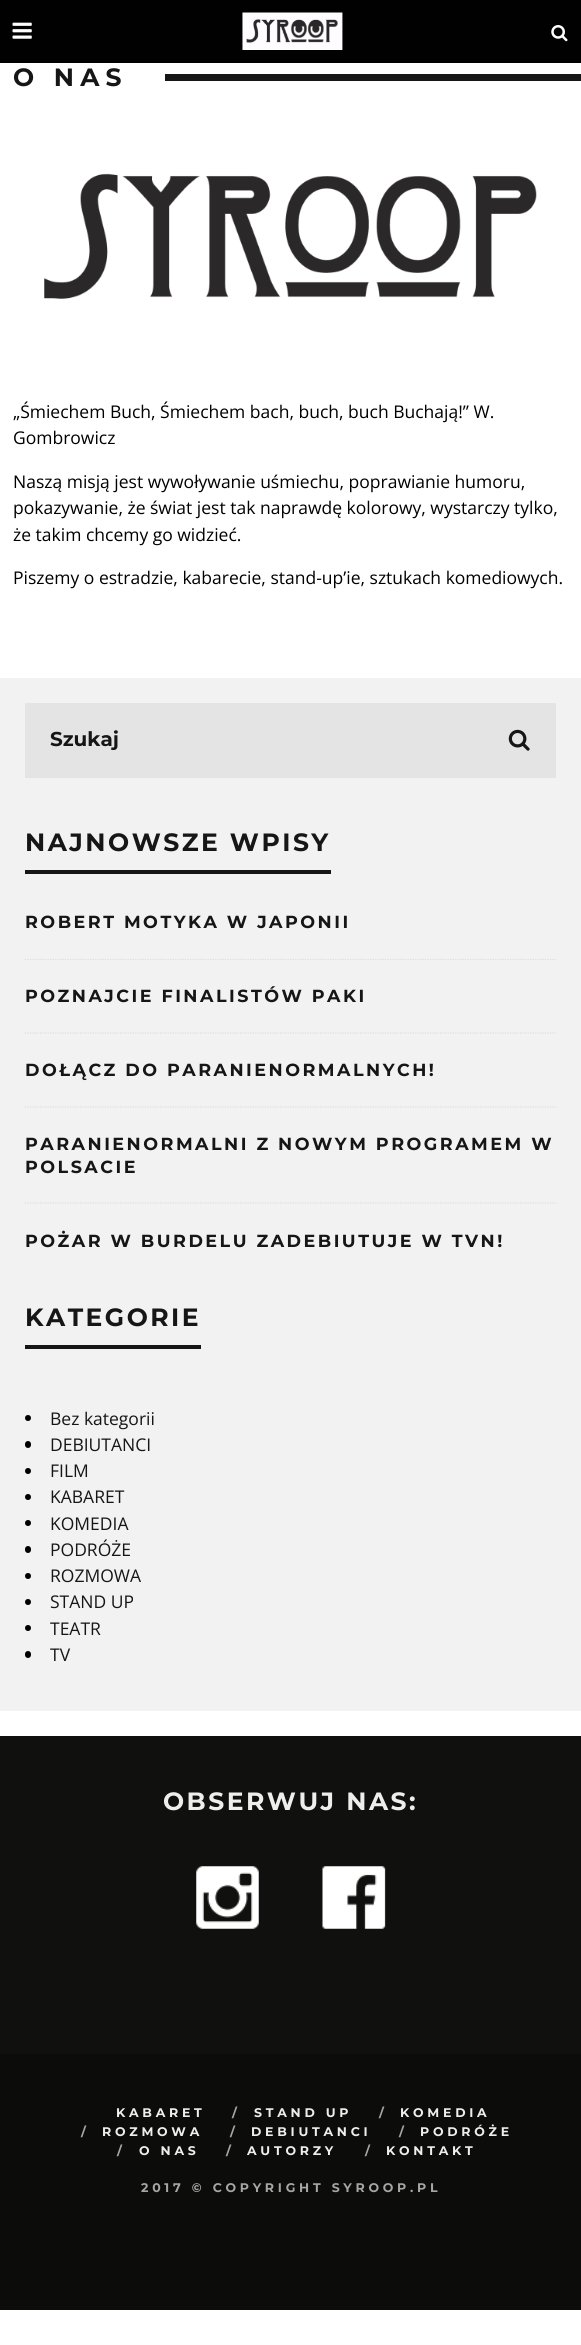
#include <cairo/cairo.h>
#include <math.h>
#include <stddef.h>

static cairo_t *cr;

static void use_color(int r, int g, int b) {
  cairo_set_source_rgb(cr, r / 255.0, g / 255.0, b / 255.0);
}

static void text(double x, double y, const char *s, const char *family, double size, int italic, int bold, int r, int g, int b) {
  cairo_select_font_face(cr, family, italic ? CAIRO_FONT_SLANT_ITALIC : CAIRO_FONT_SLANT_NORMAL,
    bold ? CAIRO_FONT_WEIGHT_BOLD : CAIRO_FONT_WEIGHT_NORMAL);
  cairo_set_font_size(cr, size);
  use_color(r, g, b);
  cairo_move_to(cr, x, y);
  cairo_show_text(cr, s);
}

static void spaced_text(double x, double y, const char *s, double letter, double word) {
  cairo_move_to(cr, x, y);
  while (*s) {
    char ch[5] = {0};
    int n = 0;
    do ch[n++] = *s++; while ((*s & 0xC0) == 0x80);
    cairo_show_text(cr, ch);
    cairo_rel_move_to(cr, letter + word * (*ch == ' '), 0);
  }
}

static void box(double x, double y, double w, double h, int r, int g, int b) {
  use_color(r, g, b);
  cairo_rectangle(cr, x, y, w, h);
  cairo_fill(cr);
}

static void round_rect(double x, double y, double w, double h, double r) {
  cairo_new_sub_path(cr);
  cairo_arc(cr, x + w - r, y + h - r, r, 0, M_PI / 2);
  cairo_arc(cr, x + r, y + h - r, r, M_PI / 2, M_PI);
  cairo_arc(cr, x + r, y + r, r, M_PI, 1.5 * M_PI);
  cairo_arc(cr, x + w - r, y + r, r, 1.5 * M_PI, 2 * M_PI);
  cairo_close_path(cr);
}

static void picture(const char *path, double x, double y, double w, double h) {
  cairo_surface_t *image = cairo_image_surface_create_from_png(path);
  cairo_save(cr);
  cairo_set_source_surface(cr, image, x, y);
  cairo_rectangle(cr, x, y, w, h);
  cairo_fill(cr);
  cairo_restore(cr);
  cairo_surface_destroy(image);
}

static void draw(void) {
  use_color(255, 255, 255);
  cairo_paint(cr);
  box(0, 0, 581, 63, 1, 1, 1);
  picture("img_01.png", 12, 22, 20, 17);
  picture("img_02.png", 242, 12, 101, 38);
  picture("img_03.png", 551, 25, 17, 17);
  box(165, 74, 416, 7, 22, 22, 22);
  picture("img_04.png", 44, 173, 493, 126);
  box(0, 678, 581, 1033, 242, 242, 242);
  box(25, 703, 531, 75, 228, 228, 228);
  picture("img_05.png", 508, 729, 22, 22);
  box(25, 870, 306, 4, 22, 22, 22);
  cairo_new_path(cr);
  cairo_move_to(cr, 25, 959.5);
  cairo_line_to(cr, 556, 959.5);
  use_color(221, 221, 221);
  cairo_set_line_width(cr, 1.2);
  cairo_set_dash(cr, (double[]){1.25, 1.25}, 2, 0);
  cairo_stroke(cr);
  cairo_new_path(cr);
  cairo_move_to(cr, 25, 1033);
  cairo_line_to(cr, 556, 1033);
  cairo_stroke(cr);
  cairo_new_path(cr);
  cairo_move_to(cr, 25, 1107);
  cairo_line_to(cr, 556, 1107);
  cairo_stroke(cr);
  cairo_new_path(cr);
  cairo_move_to(cr, 25, 1203);
  cairo_line_to(cr, 556, 1203);
  cairo_stroke(cr);
  box(25, 1345, 176, 4, 22, 22, 22);
  use_color(0, 0, 0);
  cairo_arc(cr, 28, 1418, 3, 0, 2 * M_PI);
  cairo_fill(cr);
  round_rect(25, 1441, 6, 7, 3);
  cairo_fill(cr);
  cairo_arc(cr, 28, 1471, 3, 0, 2 * M_PI);
  cairo_fill(cr);
  cairo_arc(cr, 28, 1497, 3, 0, 2 * M_PI);
  cairo_fill(cr);
  cairo_arc(cr, 28, 1523, 3, 0, 2 * M_PI);
  cairo_fill(cr);
  round_rect(25, 1546, 6, 7, 3);
  cairo_fill(cr);
  cairo_arc(cr, 28, 1576, 3, 0, 2 * M_PI);
  cairo_fill(cr);
  cairo_arc(cr, 28, 1602, 3, 0, 2 * M_PI);
  cairo_fill(cr);
  cairo_arc(cr, 28, 1628, 3, 0, 2 * M_PI);
  cairo_fill(cr);
  round_rect(25, 1651, 6, 7, 3);
  cairo_fill(cr);
  box(0, 1736, 581, 318, 16, 16, 15);
  picture("img_06.png", 196, 1866, 63, 63);
  picture("img_07.png", 322, 1866, 64, 63);
  box(0, 2054, 581, 256, 12, 12, 11);
  cairo_select_font_face(cr, "Montserrat", CAIRO_FONT_SLANT_NORMAL, CAIRO_FONT_WEIGHT_BOLD);
  cairo_set_font_size(cr, 25);
  use_color(22, 22, 22);
  spaced_text(13, 86, "O NAS", 6.25, 0);
  text(13, 418, "„Śmiechem Buch, Śmiechem bach, buch, buch Buchają!” W.", "Open Sans", 17.5, 0, 0, 0, 0, 0);
  text(13, 444, "Gombrowicz", "Open Sans", 17.5, 0, 0, 0, 0, 0);
  text(13, 488, "Naszą misją jest wywoływanie uśmiechu, poprawianie humoru,", "Open Sans", 17.5, 0, 0, 0, 0, 0);
  text(13, 514, "pokazywanie, że świat jest tak naprawdę kolorowy, wystarczy tylko,", "Open Sans", 17.5, 0, 0, 0, 0, 0);
  text(13, 541, "że takim chcemy go widzieć.", "Open Sans", 17.5, 0, 0, 0, 0, 0);
  text(13, 584, "Piszemy o estradzie, kabarecie, stand-up’ie, sztukach komediowych.", "Open Sans", 17.5, 0, 0, 0, 0, 0);
  text(50, 746, "Szukaj", "Montserrat", 20, 0, 1, 22, 22, 22);
  cairo_set_font_size(cr, 25);
  spaced_text(25, 851, "NAJNOWSZE WPISY", 2.5, 0);
  cairo_set_font_size(cr, 17.5);
  spaced_text(25, 928, "ROBERT MOTYKA W JAPONII", 2.5, 0);
  spaced_text(25, 1002, "POZNAJCIE FINALISTÓW PAKI", 2.5, 0);
  spaced_text(25, 1076, "DOŁĄCZ DO PARANIENORMALNYCH!", 2.5, 0);
  spaced_text(25, 1150, "PARANIENORMALNI Z NOWYM PROGRAMEM W", 2.5, 0);
  spaced_text(25, 1173, "POLSACIE", 2.5, 0);
  spaced_text(25, 1247, "POŻAR W BURDELU ZADEBIUTUJE W TVN!", 2.5, 0);
  cairo_set_font_size(cr, 25);
  spaced_text(25, 1326, "KATEGORIE", 2.5, 0);
  text(50, 1425, "Bez kategorii", "Open Sans", 17.5, 0, 0, 22, 22, 22);
  text(50, 1451, "DEBIUTANCI", "Open Sans", 17.5, 0, 0, 22, 22, 22);
  text(50, 1477, "FILM", "Open Sans", 17.5, 0, 0, 22, 22, 22);
  text(50, 1503, "KABARET", "Open Sans", 17.5, 0, 0, 22, 22, 22);
  text(50, 1530, "KOMEDIA", "Open Sans", 17.5, 0, 0, 22, 22, 22);
  text(50, 1556, "PODRÓŻE", "Open Sans", 17.5, 0, 0, 22, 22, 22);
  text(50, 1582, "ROZMOWA", "Open Sans", 17.5, 0, 0, 22, 22, 22);
  text(50, 1608, "STAND UP", "Open Sans", 17.5, 0, 0, 22, 22, 22);
  text(50, 1635, "TEATR", "Open Sans", 17.5, 0, 0, 22, 22, 22);
  text(50, 1661, "TV", "Open Sans", 17.5, 0, 0, 22, 22, 22);
  cairo_select_font_face(cr, "Montserrat", CAIRO_FONT_SLANT_NORMAL, CAIRO_FONT_WEIGHT_BOLD);
  cairo_set_font_size(cr, 25);
  use_color(238, 238, 238);
  spaced_text(163, 1810, "OBSERWUJ NAS:", 2.5, 0);
  cairo_set_font_size(cr, 12.5);
  spaced_text(116, 2117, "KABARET", 3.75, 0);
  use_color(166, 166, 166);
  spaced_text(232, 2117, "/", 3.75, 0);
  use_color(238, 238, 238);
  spaced_text(254, 2117, "STAND UP", 3.75, 0);
  use_color(166, 166, 166);
  spaced_text(379, 2117, "/", 3.75, 0);
  use_color(238, 238, 238);
  spaced_text(400, 2117, "KOMEDIA", 3.75, 0);
  use_color(166, 166, 166);
  spaced_text(81, 2136, "/", 3.75, 0);
  use_color(238, 238, 238);
  spaced_text(102, 2136, "ROZMOWA", 3.75, 0);
  use_color(166, 166, 166);
  spaced_text(230, 2136, "/", 3.75, 0);
  use_color(238, 238, 238);
  spaced_text(251, 2136, "DEBIUTANCI", 3.75, 0);
  use_color(166, 166, 166);
  spaced_text(399, 2136, "/", 3.75, 0);
  use_color(238, 238, 238);
  spaced_text(420, 2136, "PODRÓŻE", 3.75, 0);
  use_color(166, 166, 166);
  spaced_text(117, 2155, "/", 3.75, 0);
  use_color(238, 238, 238);
  spaced_text(139, 2155, "O NAS", 3.75, 0);
  use_color(166, 166, 166);
  spaced_text(226, 2155, "/", 3.75, 0);
  use_color(238, 238, 238);
  spaced_text(247, 2155, "AUTORZY", 3.75, 0);
  use_color(166, 166, 166);
  spaced_text(365, 2155, "/", 3.75, 0);
  use_color(238, 238, 238);
  spaced_text(386, 2155, "KONTAKT", 3.75, 0);
  use_color(166, 166, 166);
  spaced_text(141, 2192, "2017 © COPYRIGHT SYROOP.PL", 3.75, 0);
}

int main(void) {
  cairo_surface_t *surface = cairo_image_surface_create(CAIRO_FORMAT_RGB24, 581, 2345);
  cr = cairo_create(surface);
  cairo_font_options_t *options = cairo_font_options_create();
  cairo_font_options_set_hint_metrics(options, CAIRO_HINT_METRICS_OFF);
  cairo_font_options_set_hint_style(options, CAIRO_HINT_STYLE_NONE);
  cairo_set_font_options(cr, options);
  cairo_set_miter_limit(cr, 4);
  draw();
  cairo_surface_write_to_png(surface, "out.png");
  cairo_font_options_destroy(options);
  cairo_destroy(cr);
  cairo_surface_destroy(surface);
  return 0;
}
